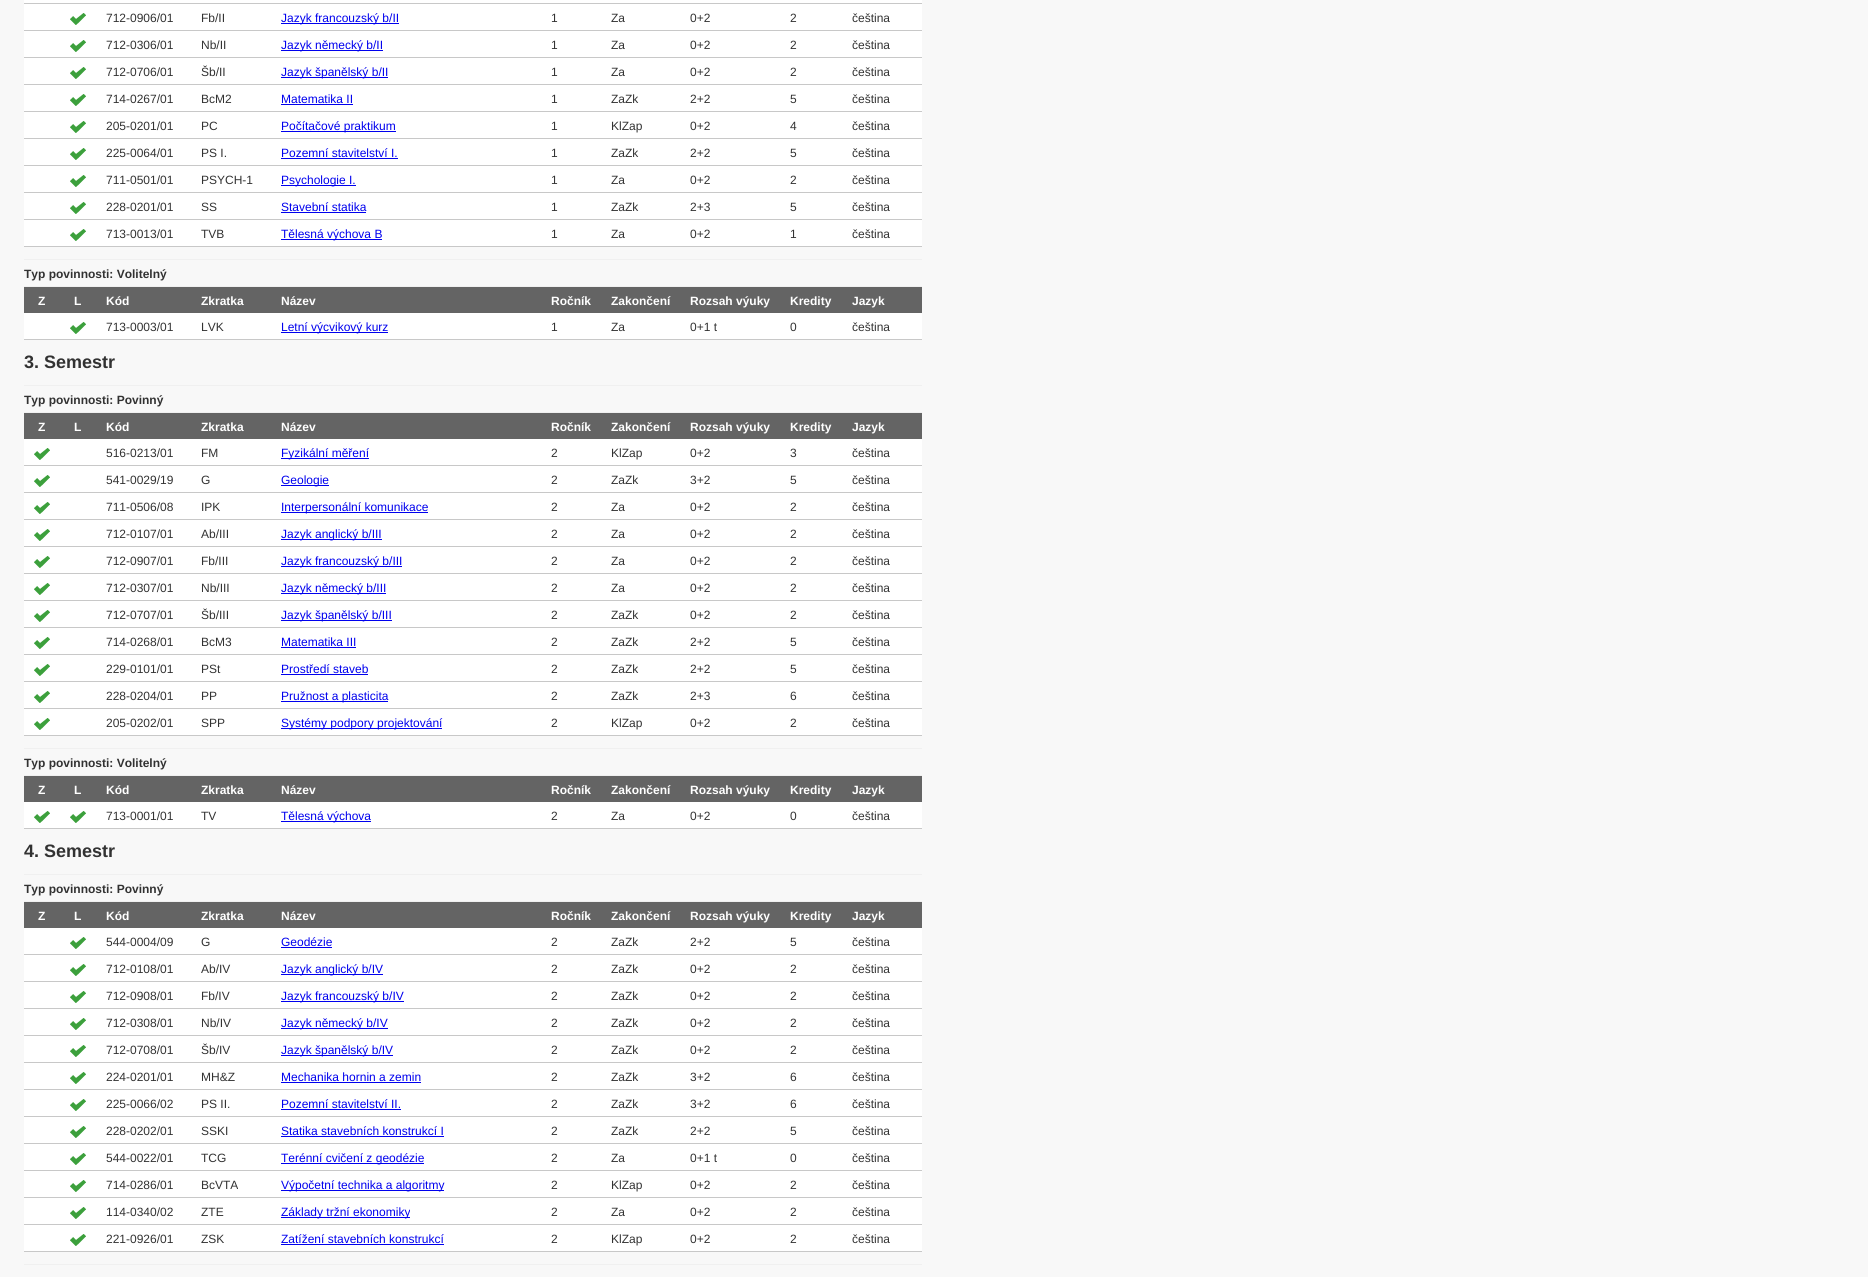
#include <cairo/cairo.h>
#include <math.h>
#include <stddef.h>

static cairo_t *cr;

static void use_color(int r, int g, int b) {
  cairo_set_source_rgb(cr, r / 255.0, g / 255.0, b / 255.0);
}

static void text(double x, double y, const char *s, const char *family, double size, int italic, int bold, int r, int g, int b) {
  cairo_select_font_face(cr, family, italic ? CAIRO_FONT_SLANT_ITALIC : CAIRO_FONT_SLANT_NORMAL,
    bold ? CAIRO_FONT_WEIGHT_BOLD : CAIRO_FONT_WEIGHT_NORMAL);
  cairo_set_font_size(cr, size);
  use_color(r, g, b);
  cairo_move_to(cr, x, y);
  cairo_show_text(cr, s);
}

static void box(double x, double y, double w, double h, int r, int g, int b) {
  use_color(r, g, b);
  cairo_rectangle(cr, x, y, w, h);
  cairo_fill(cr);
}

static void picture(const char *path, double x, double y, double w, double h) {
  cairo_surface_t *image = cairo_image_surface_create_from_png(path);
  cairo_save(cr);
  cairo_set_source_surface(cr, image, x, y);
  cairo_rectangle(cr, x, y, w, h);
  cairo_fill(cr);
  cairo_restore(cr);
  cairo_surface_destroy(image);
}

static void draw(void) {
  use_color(248, 248, 248);
  cairo_paint(cr);
  box(24, 0, 898, 3, 255, 255, 255);
  box(24, 3, 898, 1, 200, 200, 200);
  box(24, 4, 898, 26, 255, 255, 255);
  picture("img_01.png", 70, 13, 16, 12);
  box(281, 23, 118, 1, 0, 0, 238);
  box(24, 30, 898, 1, 200, 200, 200);
  box(24, 31, 898, 26, 255, 255, 255);
  picture("img_01.png", 70, 40, 16, 12);
  box(281, 50, 102, 1, 0, 0, 238);
  box(24, 57, 898, 1, 200, 200, 200);
  box(24, 58, 898, 26, 255, 255, 255);
  picture("img_01.png", 70, 67, 16, 12);
  box(281, 77, 107, 1, 0, 0, 238);
  box(24, 84, 898, 1, 200, 200, 200);
  box(24, 85, 898, 26, 255, 255, 255);
  picture("img_01.png", 70, 94, 16, 12);
  box(281, 104, 72, 1, 0, 0, 238);
  box(24, 111, 898, 1, 200, 200, 200);
  box(24, 112, 898, 26, 255, 255, 255);
  picture("img_01.png", 70, 121, 16, 12);
  box(281, 131, 115, 1, 0, 0, 238);
  box(24, 138, 898, 1, 200, 200, 200);
  box(24, 139, 898, 26, 255, 255, 255);
  picture("img_01.png", 70, 148, 16, 12);
  box(281, 158, 117, 1, 0, 0, 238);
  box(24, 165, 898, 1, 200, 200, 200);
  box(24, 166, 898, 26, 255, 255, 255);
  picture("img_01.png", 70, 175, 16, 12);
  box(281, 185, 75, 1, 0, 0, 238);
  box(24, 192, 898, 1, 200, 200, 200);
  box(24, 193, 898, 26, 255, 255, 255);
  picture("img_01.png", 70, 202, 16, 12);
  box(281, 212, 85, 1, 0, 0, 238);
  box(24, 219, 898, 1, 200, 200, 200);
  box(24, 220, 898, 26, 255, 255, 255);
  picture("img_01.png", 70, 229, 16, 12);
  box(281, 239, 101, 1, 0, 0, 238);
  box(24, 246, 898, 1, 200, 200, 200);
  box(24, 259, 898, 1, 240, 240, 240);
  box(24, 286, 898, 1, 240, 240, 240);
  box(24, 287, 898, 26, 100, 100, 100);
  box(24, 313, 898, 26, 255, 255, 255);
  picture("img_01.png", 70, 322, 16, 12);
  box(281, 332, 107, 1, 0, 0, 238);
  box(24, 339, 898, 1, 200, 200, 200);
  box(24, 385, 898, 1, 240, 240, 240);
  box(24, 412, 898, 1, 240, 240, 240);
  box(24, 413, 898, 26, 100, 100, 100);
  box(24, 439, 898, 26, 255, 255, 255);
  picture("img_01.png", 34, 448, 16, 12);
  box(281, 458, 88, 1, 0, 0, 238);
  box(24, 465, 898, 1, 200, 200, 200);
  box(24, 466, 898, 26, 255, 255, 255);
  picture("img_01.png", 34, 475, 16, 12);
  box(281, 485, 48, 1, 0, 0, 238);
  box(24, 492, 898, 1, 200, 200, 200);
  box(24, 493, 898, 26, 255, 255, 255);
  picture("img_01.png", 34, 502, 16, 12);
  box(281, 512, 147, 1, 0, 0, 238);
  box(24, 519, 898, 1, 200, 200, 200);
  box(24, 520, 898, 26, 255, 255, 255);
  picture("img_01.png", 34, 529, 16, 12);
  box(281, 539, 101, 1, 0, 0, 238);
  box(24, 546, 898, 1, 200, 200, 200);
  box(24, 547, 898, 26, 255, 255, 255);
  picture("img_01.png", 34, 556, 16, 12);
  box(281, 566, 121, 1, 0, 0, 238);
  box(24, 573, 898, 1, 200, 200, 200);
  box(24, 574, 898, 26, 255, 255, 255);
  picture("img_01.png", 34, 583, 16, 12);
  box(281, 593, 105, 1, 0, 0, 238);
  box(24, 600, 898, 1, 200, 200, 200);
  box(24, 601, 898, 26, 255, 255, 255);
  picture("img_01.png", 34, 610, 16, 12);
  box(281, 620, 111, 1, 0, 0, 238);
  box(24, 627, 898, 1, 200, 200, 200);
  box(24, 628, 898, 26, 255, 255, 255);
  picture("img_01.png", 34, 637, 16, 12);
  box(281, 647, 75, 1, 0, 0, 238);
  box(24, 654, 898, 1, 200, 200, 200);
  box(24, 655, 898, 26, 255, 255, 255);
  picture("img_01.png", 34, 664, 16, 12);
  box(281, 674, 87, 1, 0, 0, 238);
  box(24, 681, 898, 1, 200, 200, 200);
  box(24, 682, 898, 26, 255, 255, 255);
  picture("img_01.png", 34, 691, 16, 12);
  box(281, 701, 107, 1, 0, 0, 238);
  box(24, 708, 898, 1, 200, 200, 200);
  box(24, 709, 898, 26, 255, 255, 255);
  picture("img_01.png", 34, 718, 16, 12);
  box(281, 728, 161, 1, 0, 0, 238);
  box(24, 735, 898, 1, 200, 200, 200);
  box(24, 748, 898, 1, 240, 240, 240);
  box(24, 775, 898, 1, 240, 240, 240);
  box(24, 776, 898, 26, 100, 100, 100);
  box(24, 802, 898, 26, 255, 255, 255);
  picture("img_01.png", 34, 811, 16, 12);
  picture("img_01.png", 70, 811, 16, 12);
  box(281, 821, 90, 1, 0, 0, 238);
  box(24, 828, 898, 1, 200, 200, 200);
  box(24, 874, 898, 1, 240, 240, 240);
  box(24, 901, 898, 1, 240, 240, 240);
  box(24, 902, 898, 26, 100, 100, 100);
  box(24, 928, 898, 26, 255, 255, 255);
  picture("img_01.png", 70, 937, 16, 12);
  box(281, 947, 51, 1, 0, 0, 238);
  box(24, 954, 898, 1, 200, 200, 200);
  box(24, 955, 898, 26, 255, 255, 255);
  picture("img_01.png", 70, 964, 16, 12);
  box(281, 974, 102, 1, 0, 0, 238);
  box(24, 981, 898, 1, 200, 200, 200);
  box(24, 982, 898, 26, 255, 255, 255);
  picture("img_01.png", 70, 991, 16, 12);
  box(281, 1001, 123, 1, 0, 0, 238);
  box(24, 1008, 898, 1, 200, 200, 200);
  box(24, 1009, 898, 26, 255, 255, 255);
  picture("img_01.png", 70, 1018, 16, 12);
  box(281, 1028, 107, 1, 0, 0, 238);
  box(24, 1035, 898, 1, 200, 200, 200);
  box(24, 1036, 898, 26, 255, 255, 255);
  picture("img_01.png", 70, 1045, 16, 12);
  box(281, 1055, 112, 1, 0, 0, 238);
  box(24, 1062, 898, 1, 200, 200, 200);
  box(24, 1063, 898, 26, 255, 255, 255);
  picture("img_01.png", 70, 1072, 16, 12);
  box(281, 1082, 140, 1, 0, 0, 238);
  box(24, 1089, 898, 1, 200, 200, 200);
  box(24, 1090, 898, 26, 255, 255, 255);
  picture("img_01.png", 70, 1099, 16, 12);
  box(281, 1109, 120, 1, 0, 0, 238);
  box(24, 1116, 898, 1, 200, 200, 200);
  box(24, 1117, 898, 26, 255, 255, 255);
  picture("img_01.png", 70, 1126, 16, 12);
  box(281, 1136, 163, 1, 0, 0, 238);
  box(24, 1143, 898, 1, 200, 200, 200);
  box(24, 1144, 898, 26, 255, 255, 255);
  picture("img_01.png", 70, 1153, 16, 12);
  box(281, 1163, 143, 1, 0, 0, 238);
  box(24, 1170, 898, 1, 200, 200, 200);
  box(24, 1171, 898, 26, 255, 255, 255);
  picture("img_01.png", 70, 1180, 16, 12);
  box(281, 1190, 163, 1, 0, 0, 238);
  box(24, 1197, 898, 1, 200, 200, 200);
  box(24, 1198, 898, 26, 255, 255, 255);
  picture("img_01.png", 70, 1207, 16, 12);
  box(281, 1217, 129, 1, 0, 0, 238);
  box(24, 1224, 898, 1, 200, 200, 200);
  box(24, 1225, 898, 26, 255, 255, 255);
  picture("img_01.png", 70, 1234, 16, 12);
  box(281, 1244, 163, 1, 0, 0, 238);
  box(24, 1251, 898, 1, 200, 200, 200);
  box(24, 1264, 898, 1, 240, 240, 240);
  text(106, 22, "712-0906/01", "Liberation Sans", 12, 0, 0, 50, 50, 50);
  text(201, 22, "Fb/II", "Liberation Sans", 12, 0, 0, 50, 50, 50);
  text(281, 22, "Jazyk francouzský b/II", "Liberation Sans", 12, 0, 0, 0, 0, 238);
  text(551, 22, "1", "Liberation Sans", 12, 0, 0, 50, 50, 50);
  text(611, 22, "Za", "Liberation Sans", 12, 0, 0, 50, 50, 50);
  text(690, 22, "0+2", "Liberation Sans", 12, 0, 0, 50, 50, 50);
  text(790, 22, "2", "Liberation Sans", 12, 0, 0, 50, 50, 50);
  text(852, 22, "čeština", "Liberation Sans", 12, 0, 0, 50, 50, 50);
  text(106, 49, "712-0306/01", "Liberation Sans", 12, 0, 0, 50, 50, 50);
  text(201, 49, "Nb/II", "Liberation Sans", 12, 0, 0, 50, 50, 50);
  text(281, 49, "Jazyk německý b/II", "Liberation Sans", 12, 0, 0, 0, 0, 238);
  text(551, 49, "1", "Liberation Sans", 12, 0, 0, 50, 50, 50);
  text(611, 49, "Za", "Liberation Sans", 12, 0, 0, 50, 50, 50);
  text(690, 49, "0+2", "Liberation Sans", 12, 0, 0, 50, 50, 50);
  text(790, 49, "2", "Liberation Sans", 12, 0, 0, 50, 50, 50);
  text(852, 49, "čeština", "Liberation Sans", 12, 0, 0, 50, 50, 50);
  text(106, 76, "712-0706/01", "Liberation Sans", 12, 0, 0, 50, 50, 50);
  text(201, 76, "Šb/II", "Liberation Sans", 12, 0, 0, 50, 50, 50);
  text(281, 76, "Jazyk španělský b/II", "Liberation Sans", 12, 0, 0, 0, 0, 238);
  text(551, 76, "1", "Liberation Sans", 12, 0, 0, 50, 50, 50);
  text(611, 76, "Za", "Liberation Sans", 12, 0, 0, 50, 50, 50);
  text(690, 76, "0+2", "Liberation Sans", 12, 0, 0, 50, 50, 50);
  text(790, 76, "2", "Liberation Sans", 12, 0, 0, 50, 50, 50);
  text(852, 76, "čeština", "Liberation Sans", 12, 0, 0, 50, 50, 50);
  text(106, 103, "714-0267/01", "Liberation Sans", 12, 0, 0, 50, 50, 50);
  text(201, 103, "BcM2", "Liberation Sans", 12, 0, 0, 50, 50, 50);
  text(281, 103, "Matematika II", "Liberation Sans", 12, 0, 0, 0, 0, 238);
  text(551, 103, "1", "Liberation Sans", 12, 0, 0, 50, 50, 50);
  text(611, 103, "ZaZk", "Liberation Sans", 12, 0, 0, 50, 50, 50);
  text(690, 103, "2+2", "Liberation Sans", 12, 0, 0, 50, 50, 50);
  text(790, 103, "5", "Liberation Sans", 12, 0, 0, 50, 50, 50);
  text(852, 103, "čeština", "Liberation Sans", 12, 0, 0, 50, 50, 50);
  text(106, 130, "205-0201/01", "Liberation Sans", 12, 0, 0, 50, 50, 50);
  text(201, 130, "PC", "Liberation Sans", 12, 0, 0, 50, 50, 50);
  text(281, 130, "Počítačové praktikum", "Liberation Sans", 12, 0, 0, 0, 0, 238);
  text(551, 130, "1", "Liberation Sans", 12, 0, 0, 50, 50, 50);
  text(611, 130, "KlZap", "Liberation Sans", 12, 0, 0, 50, 50, 50);
  text(690, 130, "0+2", "Liberation Sans", 12, 0, 0, 50, 50, 50);
  text(790, 130, "4", "Liberation Sans", 12, 0, 0, 50, 50, 50);
  text(852, 130, "čeština", "Liberation Sans", 12, 0, 0, 50, 50, 50);
  text(106, 157, "225-0064/01", "Liberation Sans", 12, 0, 0, 50, 50, 50);
  text(201, 157, "PS I.", "Liberation Sans", 12, 0, 0, 50, 50, 50);
  text(281, 157, "Pozemní stavitelství I.", "Liberation Sans", 12, 0, 0, 0, 0, 238);
  text(551, 157, "1", "Liberation Sans", 12, 0, 0, 50, 50, 50);
  text(611, 157, "ZaZk", "Liberation Sans", 12, 0, 0, 50, 50, 50);
  text(690, 157, "2+2", "Liberation Sans", 12, 0, 0, 50, 50, 50);
  text(790, 157, "5", "Liberation Sans", 12, 0, 0, 50, 50, 50);
  text(852, 157, "čeština", "Liberation Sans", 12, 0, 0, 50, 50, 50);
  text(106, 184, "711-0501/01", "Liberation Sans", 12, 0, 0, 50, 50, 50);
  text(201, 184, "PSYCH-1", "Liberation Sans", 12, 0, 0, 50, 50, 50);
  text(281, 184, "Psychologie I.", "Liberation Sans", 12, 0, 0, 0, 0, 238);
  text(551, 184, "1", "Liberation Sans", 12, 0, 0, 50, 50, 50);
  text(611, 184, "Za", "Liberation Sans", 12, 0, 0, 50, 50, 50);
  text(690, 184, "0+2", "Liberation Sans", 12, 0, 0, 50, 50, 50);
  text(790, 184, "2", "Liberation Sans", 12, 0, 0, 50, 50, 50);
  text(852, 184, "čeština", "Liberation Sans", 12, 0, 0, 50, 50, 50);
  text(106, 211, "228-0201/01", "Liberation Sans", 12, 0, 0, 50, 50, 50);
  text(201, 211, "SS", "Liberation Sans", 12, 0, 0, 50, 50, 50);
  text(281, 211, "Stavební statika", "Liberation Sans", 12, 0, 0, 0, 0, 238);
  text(551, 211, "1", "Liberation Sans", 12, 0, 0, 50, 50, 50);
  text(611, 211, "ZaZk", "Liberation Sans", 12, 0, 0, 50, 50, 50);
  text(690, 211, "2+3", "Liberation Sans", 12, 0, 0, 50, 50, 50);
  text(790, 211, "5", "Liberation Sans", 12, 0, 0, 50, 50, 50);
  text(852, 211, "čeština", "Liberation Sans", 12, 0, 0, 50, 50, 50);
  text(106, 238, "713-0013/01", "Liberation Sans", 12, 0, 0, 50, 50, 50);
  text(201, 238, "TVB", "Liberation Sans", 12, 0, 0, 50, 50, 50);
  text(281, 238, "Tělesná výchova B", "Liberation Sans", 12, 0, 0, 0, 0, 238);
  text(551, 238, "1", "Liberation Sans", 12, 0, 0, 50, 50, 50);
  text(611, 238, "Za", "Liberation Sans", 12, 0, 0, 50, 50, 50);
  text(690, 238, "0+2", "Liberation Sans", 12, 0, 0, 50, 50, 50);
  text(790, 238, "1", "Liberation Sans", 12, 0, 0, 50, 50, 50);
  text(852, 238, "čeština", "Liberation Sans", 12, 0, 0, 50, 50, 50);
  text(24, 278, "Typ povinnosti: Volitelný", "Liberation Sans", 12, 0, 1, 50, 50, 50);
  text(38, 305, "Z", "Liberation Sans", 12, 0, 1, 255, 255, 255);
  text(74, 305, "L", "Liberation Sans", 12, 0, 1, 255, 255, 255);
  text(106, 305, "Kód", "Liberation Sans", 12, 0, 1, 255, 255, 255);
  text(201, 305, "Zkratka", "Liberation Sans", 12, 0, 1, 255, 255, 255);
  text(281, 305, "Název", "Liberation Sans", 12, 0, 1, 255, 255, 255);
  text(551, 305, "Ročník", "Liberation Sans", 12, 0, 1, 255, 255, 255);
  text(611, 305, "Zakončení", "Liberation Sans", 12, 0, 1, 255, 255, 255);
  text(690, 305, "Rozsah výuky", "Liberation Sans", 12, 0, 1, 255, 255, 255);
  text(790, 305, "Kredity", "Liberation Sans", 12, 0, 1, 255, 255, 255);
  text(852, 305, "Jazyk", "Liberation Sans", 12, 0, 1, 255, 255, 255);
  text(106, 331, "713-0003/01", "Liberation Sans", 12, 0, 0, 50, 50, 50);
  text(201, 331, "LVK", "Liberation Sans", 12, 0, 0, 50, 50, 50);
  text(281, 331, "Letní výcvikový kurz", "Liberation Sans", 12, 0, 0, 0, 0, 238);
  text(551, 331, "1", "Liberation Sans", 12, 0, 0, 50, 50, 50);
  text(611, 331, "Za", "Liberation Sans", 12, 0, 0, 50, 50, 50);
  text(690, 331, "0+1 t", "Liberation Sans", 12, 0, 0, 50, 50, 50);
  text(790, 331, "0", "Liberation Sans", 12, 0, 0, 50, 50, 50);
  text(852, 331, "čeština", "Liberation Sans", 12, 0, 0, 50, 50, 50);
  text(24, 368, "3. Semestr", "Liberation Sans", 18, 0, 1, 50, 50, 50);
  text(24, 404, "Typ povinnosti: Povinný", "Liberation Sans", 12, 0, 1, 50, 50, 50);
  text(38, 431, "Z", "Liberation Sans", 12, 0, 1, 255, 255, 255);
  text(74, 431, "L", "Liberation Sans", 12, 0, 1, 255, 255, 255);
  text(106, 431, "Kód", "Liberation Sans", 12, 0, 1, 255, 255, 255);
  text(201, 431, "Zkratka", "Liberation Sans", 12, 0, 1, 255, 255, 255);
  text(281, 431, "Název", "Liberation Sans", 12, 0, 1, 255, 255, 255);
  text(551, 431, "Ročník", "Liberation Sans", 12, 0, 1, 255, 255, 255);
  text(611, 431, "Zakončení", "Liberation Sans", 12, 0, 1, 255, 255, 255);
  text(690, 431, "Rozsah výuky", "Liberation Sans", 12, 0, 1, 255, 255, 255);
  text(790, 431, "Kredity", "Liberation Sans", 12, 0, 1, 255, 255, 255);
  text(852, 431, "Jazyk", "Liberation Sans", 12, 0, 1, 255, 255, 255);
  text(106, 457, "516-0213/01", "Liberation Sans", 12, 0, 0, 50, 50, 50);
  text(201, 457, "FM", "Liberation Sans", 12, 0, 0, 50, 50, 50);
  text(281, 457, "Fyzikální měření", "Liberation Sans", 12, 0, 0, 0, 0, 238);
  text(551, 457, "2", "Liberation Sans", 12, 0, 0, 50, 50, 50);
  text(611, 457, "KlZap", "Liberation Sans", 12, 0, 0, 50, 50, 50);
  text(690, 457, "0+2", "Liberation Sans", 12, 0, 0, 50, 50, 50);
  text(790, 457, "3", "Liberation Sans", 12, 0, 0, 50, 50, 50);
  text(852, 457, "čeština", "Liberation Sans", 12, 0, 0, 50, 50, 50);
  text(106, 484, "541-0029/19", "Liberation Sans", 12, 0, 0, 50, 50, 50);
  text(201, 484, "G", "Liberation Sans", 12, 0, 0, 50, 50, 50);
  text(281, 484, "Geologie", "Liberation Sans", 12, 0, 0, 0, 0, 238);
  text(551, 484, "2", "Liberation Sans", 12, 0, 0, 50, 50, 50);
  text(611, 484, "ZaZk", "Liberation Sans", 12, 0, 0, 50, 50, 50);
  text(690, 484, "3+2", "Liberation Sans", 12, 0, 0, 50, 50, 50);
  text(790, 484, "5", "Liberation Sans", 12, 0, 0, 50, 50, 50);
  text(852, 484, "čeština", "Liberation Sans", 12, 0, 0, 50, 50, 50);
  text(106, 511, "711-0506/08", "Liberation Sans", 12, 0, 0, 50, 50, 50);
  text(201, 511, "IPK", "Liberation Sans", 12, 0, 0, 50, 50, 50);
  text(281, 511, "Interpersonální komunikace", "Liberation Sans", 12, 0, 0, 0, 0, 238);
  text(551, 511, "2", "Liberation Sans", 12, 0, 0, 50, 50, 50);
  text(611, 511, "Za", "Liberation Sans", 12, 0, 0, 50, 50, 50);
  text(690, 511, "0+2", "Liberation Sans", 12, 0, 0, 50, 50, 50);
  text(790, 511, "2", "Liberation Sans", 12, 0, 0, 50, 50, 50);
  text(852, 511, "čeština", "Liberation Sans", 12, 0, 0, 50, 50, 50);
  text(106, 538, "712-0107/01", "Liberation Sans", 12, 0, 0, 50, 50, 50);
  text(201, 538, "Ab/III", "Liberation Sans", 12, 0, 0, 50, 50, 50);
  text(281, 538, "Jazyk anglický b/III", "Liberation Sans", 12, 0, 0, 0, 0, 238);
  text(551, 538, "2", "Liberation Sans", 12, 0, 0, 50, 50, 50);
  text(611, 538, "Za", "Liberation Sans", 12, 0, 0, 50, 50, 50);
  text(690, 538, "0+2", "Liberation Sans", 12, 0, 0, 50, 50, 50);
  text(790, 538, "2", "Liberation Sans", 12, 0, 0, 50, 50, 50);
  text(852, 538, "čeština", "Liberation Sans", 12, 0, 0, 50, 50, 50);
  text(106, 565, "712-0907/01", "Liberation Sans", 12, 0, 0, 50, 50, 50);
  text(201, 565, "Fb/III", "Liberation Sans", 12, 0, 0, 50, 50, 50);
  text(281, 565, "Jazyk francouzský b/III", "Liberation Sans", 12, 0, 0, 0, 0, 238);
  text(551, 565, "2", "Liberation Sans", 12, 0, 0, 50, 50, 50);
  text(611, 565, "Za", "Liberation Sans", 12, 0, 0, 50, 50, 50);
  text(690, 565, "0+2", "Liberation Sans", 12, 0, 0, 50, 50, 50);
  text(790, 565, "2", "Liberation Sans", 12, 0, 0, 50, 50, 50);
  text(852, 565, "čeština", "Liberation Sans", 12, 0, 0, 50, 50, 50);
  text(106, 592, "712-0307/01", "Liberation Sans", 12, 0, 0, 50, 50, 50);
  text(201, 592, "Nb/III", "Liberation Sans", 12, 0, 0, 50, 50, 50);
  text(281, 592, "Jazyk německý b/III", "Liberation Sans", 12, 0, 0, 0, 0, 238);
  text(551, 592, "2", "Liberation Sans", 12, 0, 0, 50, 50, 50);
  text(611, 592, "Za", "Liberation Sans", 12, 0, 0, 50, 50, 50);
  text(690, 592, "0+2", "Liberation Sans", 12, 0, 0, 50, 50, 50);
  text(790, 592, "2", "Liberation Sans", 12, 0, 0, 50, 50, 50);
  text(852, 592, "čeština", "Liberation Sans", 12, 0, 0, 50, 50, 50);
  text(106, 619, "712-0707/01", "Liberation Sans", 12, 0, 0, 50, 50, 50);
  text(201, 619, "Šb/III", "Liberation Sans", 12, 0, 0, 50, 50, 50);
  text(281, 619, "Jazyk španělský b/III", "Liberation Sans", 12, 0, 0, 0, 0, 238);
  text(551, 619, "2", "Liberation Sans", 12, 0, 0, 50, 50, 50);
  text(611, 619, "ZaZk", "Liberation Sans", 12, 0, 0, 50, 50, 50);
  text(690, 619, "0+2", "Liberation Sans", 12, 0, 0, 50, 50, 50);
  text(790, 619, "2", "Liberation Sans", 12, 0, 0, 50, 50, 50);
  text(852, 619, "čeština", "Liberation Sans", 12, 0, 0, 50, 50, 50);
  text(106, 646, "714-0268/01", "Liberation Sans", 12, 0, 0, 50, 50, 50);
  text(201, 646, "BcM3", "Liberation Sans", 12, 0, 0, 50, 50, 50);
  text(281, 646, "Matematika III", "Liberation Sans", 12, 0, 0, 0, 0, 238);
  text(551, 646, "2", "Liberation Sans", 12, 0, 0, 50, 50, 50);
  text(611, 646, "ZaZk", "Liberation Sans", 12, 0, 0, 50, 50, 50);
  text(690, 646, "2+2", "Liberation Sans", 12, 0, 0, 50, 50, 50);
  text(790, 646, "5", "Liberation Sans", 12, 0, 0, 50, 50, 50);
  text(852, 646, "čeština", "Liberation Sans", 12, 0, 0, 50, 50, 50);
  text(106, 673, "229-0101/01", "Liberation Sans", 12, 0, 0, 50, 50, 50);
  text(201, 673, "PSt", "Liberation Sans", 12, 0, 0, 50, 50, 50);
  text(281, 673, "Prostředí staveb", "Liberation Sans", 12, 0, 0, 0, 0, 238);
  text(551, 673, "2", "Liberation Sans", 12, 0, 0, 50, 50, 50);
  text(611, 673, "ZaZk", "Liberation Sans", 12, 0, 0, 50, 50, 50);
  text(690, 673, "2+2", "Liberation Sans", 12, 0, 0, 50, 50, 50);
  text(790, 673, "5", "Liberation Sans", 12, 0, 0, 50, 50, 50);
  text(852, 673, "čeština", "Liberation Sans", 12, 0, 0, 50, 50, 50);
  text(106, 700, "228-0204/01", "Liberation Sans", 12, 0, 0, 50, 50, 50);
  text(201, 700, "PP", "Liberation Sans", 12, 0, 0, 50, 50, 50);
  text(281, 700, "Pružnost a plasticita", "Liberation Sans", 12, 0, 0, 0, 0, 238);
  text(551, 700, "2", "Liberation Sans", 12, 0, 0, 50, 50, 50);
  text(611, 700, "ZaZk", "Liberation Sans", 12, 0, 0, 50, 50, 50);
  text(690, 700, "2+3", "Liberation Sans", 12, 0, 0, 50, 50, 50);
  text(790, 700, "6", "Liberation Sans", 12, 0, 0, 50, 50, 50);
  text(852, 700, "čeština", "Liberation Sans", 12, 0, 0, 50, 50, 50);
  text(106, 727, "205-0202/01", "Liberation Sans", 12, 0, 0, 50, 50, 50);
  text(201, 727, "SPP", "Liberation Sans", 12, 0, 0, 50, 50, 50);
  text(281, 727, "Systémy podpory projektování", "Liberation Sans", 12, 0, 0, 0, 0, 238);
  text(551, 727, "2", "Liberation Sans", 12, 0, 0, 50, 50, 50);
  text(611, 727, "KlZap", "Liberation Sans", 12, 0, 0, 50, 50, 50);
  text(690, 727, "0+2", "Liberation Sans", 12, 0, 0, 50, 50, 50);
  text(790, 727, "2", "Liberation Sans", 12, 0, 0, 50, 50, 50);
  text(852, 727, "čeština", "Liberation Sans", 12, 0, 0, 50, 50, 50);
  text(24, 767, "Typ povinnosti: Volitelný", "Liberation Sans", 12, 0, 1, 50, 50, 50);
  text(38, 794, "Z", "Liberation Sans", 12, 0, 1, 255, 255, 255);
  text(74, 794, "L", "Liberation Sans", 12, 0, 1, 255, 255, 255);
  text(106, 794, "Kód", "Liberation Sans", 12, 0, 1, 255, 255, 255);
  text(201, 794, "Zkratka", "Liberation Sans", 12, 0, 1, 255, 255, 255);
  text(281, 794, "Název", "Liberation Sans", 12, 0, 1, 255, 255, 255);
  text(551, 794, "Ročník", "Liberation Sans", 12, 0, 1, 255, 255, 255);
  text(611, 794, "Zakončení", "Liberation Sans", 12, 0, 1, 255, 255, 255);
  text(690, 794, "Rozsah výuky", "Liberation Sans", 12, 0, 1, 255, 255, 255);
  text(790, 794, "Kredity", "Liberation Sans", 12, 0, 1, 255, 255, 255);
  text(852, 794, "Jazyk", "Liberation Sans", 12, 0, 1, 255, 255, 255);
  text(106, 820, "713-0001/01", "Liberation Sans", 12, 0, 0, 50, 50, 50);
  text(201, 820, "TV", "Liberation Sans", 12, 0, 0, 50, 50, 50);
  text(281, 820, "Tělesná výchova", "Liberation Sans", 12, 0, 0, 0, 0, 238);
  text(551, 820, "2", "Liberation Sans", 12, 0, 0, 50, 50, 50);
  text(611, 820, "Za", "Liberation Sans", 12, 0, 0, 50, 50, 50);
  text(690, 820, "0+2", "Liberation Sans", 12, 0, 0, 50, 50, 50);
  text(790, 820, "0", "Liberation Sans", 12, 0, 0, 50, 50, 50);
  text(852, 820, "čeština", "Liberation Sans", 12, 0, 0, 50, 50, 50);
  text(24, 857, "4. Semestr", "Liberation Sans", 18, 0, 1, 50, 50, 50);
  text(24, 893, "Typ povinnosti: Povinný", "Liberation Sans", 12, 0, 1, 50, 50, 50);
  text(38, 920, "Z", "Liberation Sans", 12, 0, 1, 255, 255, 255);
  text(74, 920, "L", "Liberation Sans", 12, 0, 1, 255, 255, 255);
  text(106, 920, "Kód", "Liberation Sans", 12, 0, 1, 255, 255, 255);
  text(201, 920, "Zkratka", "Liberation Sans", 12, 0, 1, 255, 255, 255);
  text(281, 920, "Název", "Liberation Sans", 12, 0, 1, 255, 255, 255);
  text(551, 920, "Ročník", "Liberation Sans", 12, 0, 1, 255, 255, 255);
  text(611, 920, "Zakončení", "Liberation Sans", 12, 0, 1, 255, 255, 255);
  text(690, 920, "Rozsah výuky", "Liberation Sans", 12, 0, 1, 255, 255, 255);
  text(790, 920, "Kredity", "Liberation Sans", 12, 0, 1, 255, 255, 255);
  text(852, 920, "Jazyk", "Liberation Sans", 12, 0, 1, 255, 255, 255);
  text(106, 946, "544-0004/09", "Liberation Sans", 12, 0, 0, 50, 50, 50);
  text(201, 946, "G", "Liberation Sans", 12, 0, 0, 50, 50, 50);
  text(281, 946, "Geodézie", "Liberation Sans", 12, 0, 0, 0, 0, 238);
  text(551, 946, "2", "Liberation Sans", 12, 0, 0, 50, 50, 50);
  text(611, 946, "ZaZk", "Liberation Sans", 12, 0, 0, 50, 50, 50);
  text(690, 946, "2+2", "Liberation Sans", 12, 0, 0, 50, 50, 50);
  text(790, 946, "5", "Liberation Sans", 12, 0, 0, 50, 50, 50);
  text(852, 946, "čeština", "Liberation Sans", 12, 0, 0, 50, 50, 50);
  text(106, 973, "712-0108/01", "Liberation Sans", 12, 0, 0, 50, 50, 50);
  text(201, 973, "Ab/IV", "Liberation Sans", 12, 0, 0, 50, 50, 50);
  text(281, 973, "Jazyk anglický b/IV", "Liberation Sans", 12, 0, 0, 0, 0, 238);
  text(551, 973, "2", "Liberation Sans", 12, 0, 0, 50, 50, 50);
  text(611, 973, "ZaZk", "Liberation Sans", 12, 0, 0, 50, 50, 50);
  text(690, 973, "0+2", "Liberation Sans", 12, 0, 0, 50, 50, 50);
  text(790, 973, "2", "Liberation Sans", 12, 0, 0, 50, 50, 50);
  text(852, 973, "čeština", "Liberation Sans", 12, 0, 0, 50, 50, 50);
  text(106, 1000, "712-0908/01", "Liberation Sans", 12, 0, 0, 50, 50, 50);
  text(201, 1000, "Fb/IV", "Liberation Sans", 12, 0, 0, 50, 50, 50);
  text(281, 1000, "Jazyk francouzský b/IV", "Liberation Sans", 12, 0, 0, 0, 0, 238);
  text(551, 1000, "2", "Liberation Sans", 12, 0, 0, 50, 50, 50);
  text(611, 1000, "ZaZk", "Liberation Sans", 12, 0, 0, 50, 50, 50);
  text(690, 1000, "0+2", "Liberation Sans", 12, 0, 0, 50, 50, 50);
  text(790, 1000, "2", "Liberation Sans", 12, 0, 0, 50, 50, 50);
  text(852, 1000, "čeština", "Liberation Sans", 12, 0, 0, 50, 50, 50);
  text(106, 1027, "712-0308/01", "Liberation Sans", 12, 0, 0, 50, 50, 50);
  text(201, 1027, "Nb/IV", "Liberation Sans", 12, 0, 0, 50, 50, 50);
  text(281, 1027, "Jazyk německý b/IV", "Liberation Sans", 12, 0, 0, 0, 0, 238);
  text(551, 1027, "2", "Liberation Sans", 12, 0, 0, 50, 50, 50);
  text(611, 1027, "ZaZk", "Liberation Sans", 12, 0, 0, 50, 50, 50);
  text(690, 1027, "0+2", "Liberation Sans", 12, 0, 0, 50, 50, 50);
  text(790, 1027, "2", "Liberation Sans", 12, 0, 0, 50, 50, 50);
  text(852, 1027, "čeština", "Liberation Sans", 12, 0, 0, 50, 50, 50);
  text(106, 1054, "712-0708/01", "Liberation Sans", 12, 0, 0, 50, 50, 50);
  text(201, 1054, "Šb/IV", "Liberation Sans", 12, 0, 0, 50, 50, 50);
  text(281, 1054, "Jazyk španělský b/IV", "Liberation Sans", 12, 0, 0, 0, 0, 238);
  text(551, 1054, "2", "Liberation Sans", 12, 0, 0, 50, 50, 50);
  text(611, 1054, "ZaZk", "Liberation Sans", 12, 0, 0, 50, 50, 50);
  text(690, 1054, "0+2", "Liberation Sans", 12, 0, 0, 50, 50, 50);
  text(790, 1054, "2", "Liberation Sans", 12, 0, 0, 50, 50, 50);
  text(852, 1054, "čeština", "Liberation Sans", 12, 0, 0, 50, 50, 50);
  text(106, 1081, "224-0201/01", "Liberation Sans", 12, 0, 0, 50, 50, 50);
  text(201, 1081, "MH&Z", "Liberation Sans", 12, 0, 0, 50, 50, 50);
  text(281, 1081, "Mechanika hornin a zemin", "Liberation Sans", 12, 0, 0, 0, 0, 238);
  text(551, 1081, "2", "Liberation Sans", 12, 0, 0, 50, 50, 50);
  text(611, 1081, "ZaZk", "Liberation Sans", 12, 0, 0, 50, 50, 50);
  text(690, 1081, "3+2", "Liberation Sans", 12, 0, 0, 50, 50, 50);
  text(790, 1081, "6", "Liberation Sans", 12, 0, 0, 50, 50, 50);
  text(852, 1081, "čeština", "Liberation Sans", 12, 0, 0, 50, 50, 50);
  text(106, 1108, "225-0066/02", "Liberation Sans", 12, 0, 0, 50, 50, 50);
  text(201, 1108, "PS II.", "Liberation Sans", 12, 0, 0, 50, 50, 50);
  text(281, 1108, "Pozemní stavitelství II.", "Liberation Sans", 12, 0, 0, 0, 0, 238);
  text(551, 1108, "2", "Liberation Sans", 12, 0, 0, 50, 50, 50);
  text(611, 1108, "ZaZk", "Liberation Sans", 12, 0, 0, 50, 50, 50);
  text(690, 1108, "3+2", "Liberation Sans", 12, 0, 0, 50, 50, 50);
  text(790, 1108, "6", "Liberation Sans", 12, 0, 0, 50, 50, 50);
  text(852, 1108, "čeština", "Liberation Sans", 12, 0, 0, 50, 50, 50);
  text(106, 1135, "228-0202/01", "Liberation Sans", 12, 0, 0, 50, 50, 50);
  text(201, 1135, "SSKI", "Liberation Sans", 12, 0, 0, 50, 50, 50);
  text(281, 1135, "Statika stavebních konstrukcí I", "Liberation Sans", 12, 0, 0, 0, 0, 238);
  text(551, 1135, "2", "Liberation Sans", 12, 0, 0, 50, 50, 50);
  text(611, 1135, "ZaZk", "Liberation Sans", 12, 0, 0, 50, 50, 50);
  text(690, 1135, "2+2", "Liberation Sans", 12, 0, 0, 50, 50, 50);
  text(790, 1135, "5", "Liberation Sans", 12, 0, 0, 50, 50, 50);
  text(852, 1135, "čeština", "Liberation Sans", 12, 0, 0, 50, 50, 50);
  text(106, 1162, "544-0022/01", "Liberation Sans", 12, 0, 0, 50, 50, 50);
  text(201, 1162, "TCG", "Liberation Sans", 12, 0, 0, 50, 50, 50);
  text(281, 1162, "Terénní cvičení z geodézie", "Liberation Sans", 12, 0, 0, 0, 0, 238);
  text(551, 1162, "2", "Liberation Sans", 12, 0, 0, 50, 50, 50);
  text(611, 1162, "Za", "Liberation Sans", 12, 0, 0, 50, 50, 50);
  text(690, 1162, "0+1 t", "Liberation Sans", 12, 0, 0, 50, 50, 50);
  text(790, 1162, "0", "Liberation Sans", 12, 0, 0, 50, 50, 50);
  text(852, 1162, "čeština", "Liberation Sans", 12, 0, 0, 50, 50, 50);
  text(106, 1189, "714-0286/01", "Liberation Sans", 12, 0, 0, 50, 50, 50);
  text(201, 1189, "BcVTA", "Liberation Sans", 12, 0, 0, 50, 50, 50);
  text(281, 1189, "Výpočetní technika a algoritmy", "Liberation Sans", 12, 0, 0, 0, 0, 238);
  text(551, 1189, "2", "Liberation Sans", 12, 0, 0, 50, 50, 50);
  text(611, 1189, "KlZap", "Liberation Sans", 12, 0, 0, 50, 50, 50);
  text(690, 1189, "0+2", "Liberation Sans", 12, 0, 0, 50, 50, 50);
  text(790, 1189, "2", "Liberation Sans", 12, 0, 0, 50, 50, 50);
  text(852, 1189, "čeština", "Liberation Sans", 12, 0, 0, 50, 50, 50);
  text(106, 1216, "114-0340/02", "Liberation Sans", 12, 0, 0, 50, 50, 50);
  text(201, 1216, "ZTE", "Liberation Sans", 12, 0, 0, 50, 50, 50);
  text(281, 1216, "Základy tržní ekonomiky", "Liberation Sans", 12, 0, 0, 0, 0, 238);
  text(551, 1216, "2", "Liberation Sans", 12, 0, 0, 50, 50, 50);
  text(611, 1216, "Za", "Liberation Sans", 12, 0, 0, 50, 50, 50);
  text(690, 1216, "0+2", "Liberation Sans", 12, 0, 0, 50, 50, 50);
  text(790, 1216, "2", "Liberation Sans", 12, 0, 0, 50, 50, 50);
  text(852, 1216, "čeština", "Liberation Sans", 12, 0, 0, 50, 50, 50);
  text(106, 1243, "221-0926/01", "Liberation Sans", 12, 0, 0, 50, 50, 50);
  text(201, 1243, "ZSK", "Liberation Sans", 12, 0, 0, 50, 50, 50);
  text(281, 1243, "Zatížení stavebních konstrukcí", "Liberation Sans", 12, 0, 0, 0, 0, 238);
  text(551, 1243, "2", "Liberation Sans", 12, 0, 0, 50, 50, 50);
  text(611, 1243, "KlZap", "Liberation Sans", 12, 0, 0, 50, 50, 50);
  text(690, 1243, "0+2", "Liberation Sans", 12, 0, 0, 50, 50, 50);
  text(790, 1243, "2", "Liberation Sans", 12, 0, 0, 50, 50, 50);
  text(852, 1243, "čeština", "Liberation Sans", 12, 0, 0, 50, 50, 50);
}

int main(void) {
  cairo_surface_t *surface = cairo_image_surface_create(CAIRO_FORMAT_RGB24, 1868, 1277);
  cr = cairo_create(surface);
  cairo_font_options_t *options = cairo_font_options_create();
  cairo_font_options_set_hint_metrics(options, CAIRO_HINT_METRICS_OFF);
  cairo_font_options_set_hint_style(options, CAIRO_HINT_STYLE_NONE);
  cairo_set_font_options(cr, options);
  cairo_set_miter_limit(cr, 4);
  draw();
  cairo_surface_write_to_png(surface, "out.png");
  cairo_font_options_destroy(options);
  cairo_destroy(cr);
  cairo_surface_destroy(surface);
  return 0;
}
